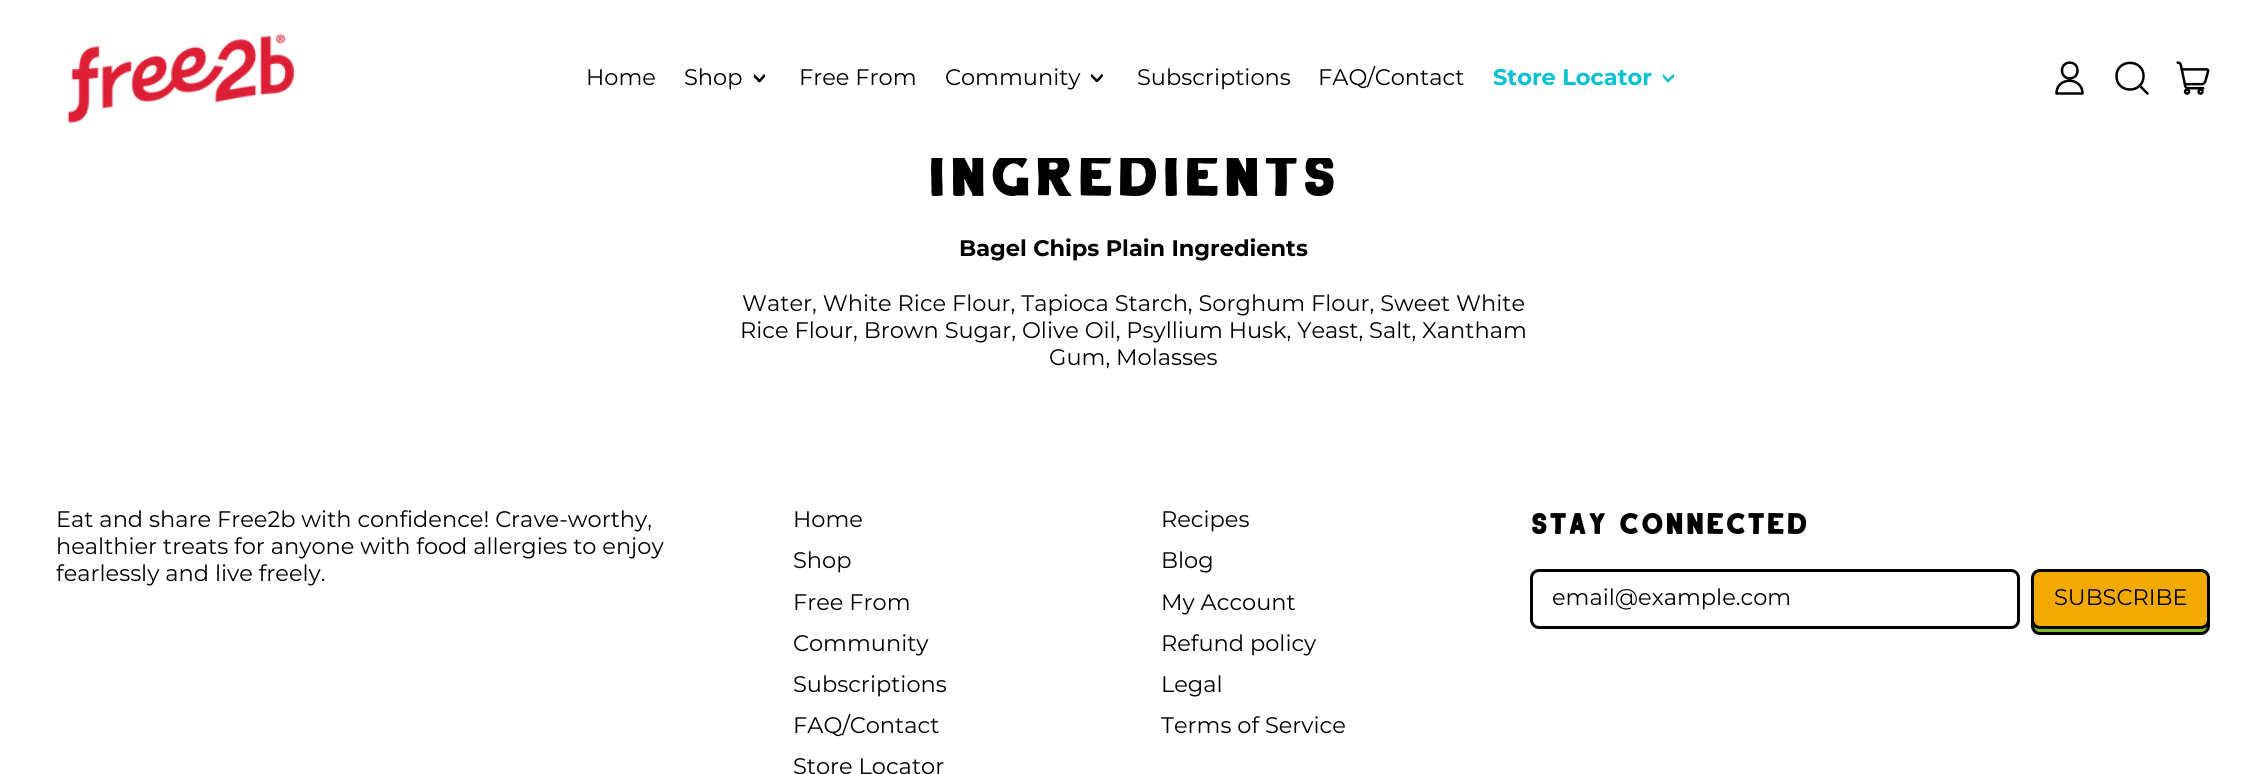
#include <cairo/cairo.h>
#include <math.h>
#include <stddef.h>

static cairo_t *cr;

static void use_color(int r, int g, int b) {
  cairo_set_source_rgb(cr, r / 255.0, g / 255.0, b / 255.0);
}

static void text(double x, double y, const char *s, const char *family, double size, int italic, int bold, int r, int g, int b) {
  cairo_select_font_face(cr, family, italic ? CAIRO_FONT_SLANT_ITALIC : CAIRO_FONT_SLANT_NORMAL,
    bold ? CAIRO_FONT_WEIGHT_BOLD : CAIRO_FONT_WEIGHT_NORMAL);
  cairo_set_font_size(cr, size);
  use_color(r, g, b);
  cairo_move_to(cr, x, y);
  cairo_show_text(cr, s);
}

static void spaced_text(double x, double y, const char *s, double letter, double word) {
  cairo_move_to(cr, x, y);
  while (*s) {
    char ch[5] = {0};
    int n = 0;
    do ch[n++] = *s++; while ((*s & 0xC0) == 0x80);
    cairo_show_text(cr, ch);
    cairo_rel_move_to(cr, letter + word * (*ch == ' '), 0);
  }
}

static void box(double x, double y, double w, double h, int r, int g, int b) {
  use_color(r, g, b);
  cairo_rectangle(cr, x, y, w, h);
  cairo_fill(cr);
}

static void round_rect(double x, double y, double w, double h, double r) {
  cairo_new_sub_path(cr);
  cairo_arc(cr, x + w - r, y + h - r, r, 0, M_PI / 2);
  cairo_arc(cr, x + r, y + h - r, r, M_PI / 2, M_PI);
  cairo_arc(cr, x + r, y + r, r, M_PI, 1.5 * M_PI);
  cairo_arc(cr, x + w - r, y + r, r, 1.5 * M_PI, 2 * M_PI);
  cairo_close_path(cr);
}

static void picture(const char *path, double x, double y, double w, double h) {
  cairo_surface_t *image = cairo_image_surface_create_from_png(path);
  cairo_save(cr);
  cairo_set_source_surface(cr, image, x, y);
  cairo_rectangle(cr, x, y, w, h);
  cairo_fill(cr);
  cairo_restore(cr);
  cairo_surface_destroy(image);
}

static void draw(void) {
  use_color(255, 255, 255);
  cairo_paint(cr);
  picture("img_01.png", 67, 33, 228, 90);
  cairo_save(cr);
  cairo_rectangle(cr, 754, 73, 11, 11);
  cairo_clip(cr);
  cairo_new_path(cr);
  cairo_move_to(cr, 754, 75.5);
  cairo_line_to(cr, 758.5, 80);
  cairo_curve_to(cr, 759.5, 81.5, 759, 81.5, 760.5, 80);
  cairo_line_to(cr, 764.5, 75.5);
  use_color(0, 0, 0);
  cairo_set_line_width(cr, 2.5);
  cairo_set_line_cap(cr, CAIRO_LINE_CAP_ROUND);
  cairo_set_line_join(cr, CAIRO_LINE_JOIN_ROUND);
  cairo_stroke(cr);
  cairo_restore(cr);
  cairo_save(cr);
  cairo_rectangle(cr, 1091, 73, 12, 11);
  cairo_clip(cr);
  cairo_new_path(cr);
  cairo_move_to(cr, 1091.5, 75.5);
  cairo_line_to(cr, 1096, 80);
  cairo_curve_to(cr, 1097, 81.5, 1096.5, 81.5, 1098, 80);
  cairo_line_to(cr, 1102, 75.5);
  use_color(0, 0, 0);
  cairo_set_line_width(cr, 2.5);
  cairo_set_line_cap(cr, CAIRO_LINE_CAP_ROUND);
  cairo_set_line_join(cr, CAIRO_LINE_JOIN_ROUND);
  cairo_stroke(cr);
  cairo_restore(cr);
  cairo_save(cr);
  cairo_rectangle(cr, 1663, 73, 11, 11);
  cairo_clip(cr);
  cairo_new_path(cr);
  cairo_move_to(cr, 1663, 75.5);
  cairo_line_to(cr, 1667, 80);
  cairo_curve_to(cr, 1668.5, 81.5, 1668, 81.5, 1669, 80);
  cairo_line_to(cr, 1673.5, 75.5);
  use_color(4, 193, 212);
  cairo_set_line_width(cr, 2.5);
  cairo_set_line_cap(cr, CAIRO_LINE_CAP_ROUND);
  cairo_set_line_join(cr, CAIRO_LINE_JOIN_ROUND);
  cairo_stroke(cr);
  cairo_restore(cr);
  cairo_new_path(cr);
  cairo_move_to(cr, 2062, 70.5);
  cairo_curve_to(cr, 2062, 81, 2077.5, 81, 2077.5, 70.5);
  cairo_curve_to(cr, 2077.5, 60, 2062, 60, 2062, 70.5);
  cairo_close_path(cr);
  cairo_move_to(cr, 2056.5, 93.5);
  cairo_curve_to(cr, 2056.5, 76.5, 2082.5, 76.5, 2082.5, 93.5);
  cairo_close_path(cr);
  use_color(0, 0, 0);
  cairo_set_line_width(cr, 2.5);
  cairo_set_line_cap(cr, CAIRO_LINE_CAP_ROUND);
  cairo_set_line_join(cr, CAIRO_LINE_JOIN_ROUND);
  cairo_stroke(cr);
  cairo_new_path(cr);
  cairo_move_to(cr, 2116.5, 76);
  cairo_curve_to(cr, 2116.5, 94, 2143.5, 94, 2143.5, 76);
  cairo_curve_to(cr, 2143.5, 58.5, 2116.5, 58.5, 2116.5, 76);
  cairo_close_path(cr);
  cairo_move_to(cr, 2147.5, 93.5);
  cairo_line_to(cr, 2139.5, 85.5);
  cairo_stroke(cr);
  picture("img_02.png", 2176, 61, 34, 34);
  round_rect(1531.5, 570.5, 487, 57, 7.5);
  cairo_set_line_width(cr, 3);
  cairo_set_line_cap(cr, CAIRO_LINE_CAP_BUTT);
  cairo_set_line_join(cr, CAIRO_LINE_JOIN_MITER);
  cairo_stroke(cr);
  use_color(120, 190, 33);
  round_rect(2032.5, 576.5, 176, 57, 7.5);
  cairo_fill_preserve(cr);
  use_color(0, 0, 0);
  cairo_stroke(cr);
  use_color(242, 169, 0);
  round_rect(2032.5, 570.5, 176, 57, 7.5);
  cairo_fill_preserve(cr);
  use_color(0, 0, 0);
  cairo_stroke(cr);
  text(586, 85, "Home", "Montserrat", 22.5, 0, 0, 0, 0, 0);
  text(684, 85, "Shop", "Montserrat", 22.5, 0, 0, 0, 0, 0);
  text(799, 85, "Free From", "Montserrat", 22.5, 0, 0, 0, 0, 0);
  text(945, 85, "Community", "Montserrat", 22.5, 0, 0, 0, 0, 0);
  text(1137, 85, "Subscriptions", "Montserrat", 22.5, 0, 0, 0, 0, 0);
  text(1318, 85, "FAQ/Contact", "Montserrat", 22.5, 0, 0, 0, 0, 0);
  text(1493, 85, "Store Locator", "Montserrat", 22.5, 0, 1, 4, 193, 212);
  cairo_select_font_face(cr, "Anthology", CAIRO_FONT_SLANT_NORMAL, CAIRO_FONT_WEIGHT_NORMAL);
  cairo_set_font_size(cr, 60);
  use_color(0, 0, 0);
  spaced_text(927, 196, "INGREDIENTS", 1.5, 0);
  box(931, 153, 400, 5, 255, 255, 255);
  text(959, 256, "Bagel Chips Plain Ingredients", "Montserrat", 22.5, 0, 1, 0, 0, 0);
  text(742, 311, "Water, White Rice Flour, Tapioca Starch, Sorghum Flour, Sweet White", "Montserrat", 22.5, 0, 0, 0, 0, 0);
  text(740, 338, "Rice Flour, Brown Sugar, Olive Oil, Psyllium Husk, Yeast, Salt, Xantham", "Montserrat", 22.5, 0, 0, 0, 0, 0);
  text(1049, 365, "Gum, Molasses", "Montserrat", 22.5, 0, 0, 0, 0, 0);
  text(56, 527, "Eat and share Free2b with confidence! Crave-worthy,", "Montserrat", 22.5, 0, 0, 0, 0, 0);
  text(56, 554, "healthier treats for anyone with food allergies to enjoy", "Montserrat", 22.5, 0, 0, 0, 0, 0);
  text(56, 581, "fearlessly and live freely.", "Montserrat", 22.5, 0, 0, 0, 0, 0);
  text(793, 527, "Home", "Montserrat", 22.5, 0, 0, 0, 0, 0);
  text(793, 568, "Shop", "Montserrat", 22.5, 0, 0, 0, 0, 0);
  text(793, 610, "Free From", "Montserrat", 22.5, 0, 0, 0, 0, 0);
  text(793, 651, "Community", "Montserrat", 22.5, 0, 0, 0, 0, 0);
  text(793, 692, "Subscriptions", "Montserrat", 22.5, 0, 0, 0, 0, 0);
  text(793, 733, "FAQ/Contact", "Montserrat", 22.5, 0, 0, 0, 0, 0);
  text(793, 774, "Store Locator", "Montserrat", 22.5, 0, 0, 0, 0, 0);
  text(1161, 527, "Recipes", "Montserrat", 22.5, 0, 0, 0, 0, 0);
  text(1161, 568, "Blog", "Montserrat", 22.5, 0, 0, 0, 0, 0);
  text(1161, 610, "My Account", "Montserrat", 22.5, 0, 0, 0, 0, 0);
  text(1161, 651, "Refund policy", "Montserrat", 22.5, 0, 0, 0, 0, 0);
  text(1161, 692, "Legal", "Montserrat", 22.5, 0, 0, 0, 0, 0);
  text(1161, 733, "Terms of Service", "Montserrat", 22.5, 0, 0, 0, 0, 0);
  cairo_select_font_face(cr, "Anthology", CAIRO_FONT_SLANT_NORMAL, CAIRO_FONT_WEIGHT_NORMAL);
  cairo_set_font_size(cr, 30);
  spaced_text(1530, 534, "STAY CONNECTED", 0.75, 0);
  text(1552, 605, "email@example.com", "Montserrat", 22.5, 0, 0, 0, 0, 0);
  text(2054, 605, "SUBSCRIBE", "Montserrat", 22.5, 0, 0, 0, 0, 0);
}

int main(void) {
  cairo_surface_t *surface = cairo_image_surface_create(CAIRO_FORMAT_RGB24, 2266, 774);
  cr = cairo_create(surface);
  cairo_font_options_t *options = cairo_font_options_create();
  cairo_font_options_set_hint_metrics(options, CAIRO_HINT_METRICS_OFF);
  cairo_font_options_set_hint_style(options, CAIRO_HINT_STYLE_NONE);
  cairo_set_font_options(cr, options);
  cairo_set_miter_limit(cr, 4);
  draw();
  cairo_surface_write_to_png(surface, "out.png");
  cairo_font_options_destroy(options);
  cairo_destroy(cr);
  cairo_surface_destroy(surface);
  return 0;
}
